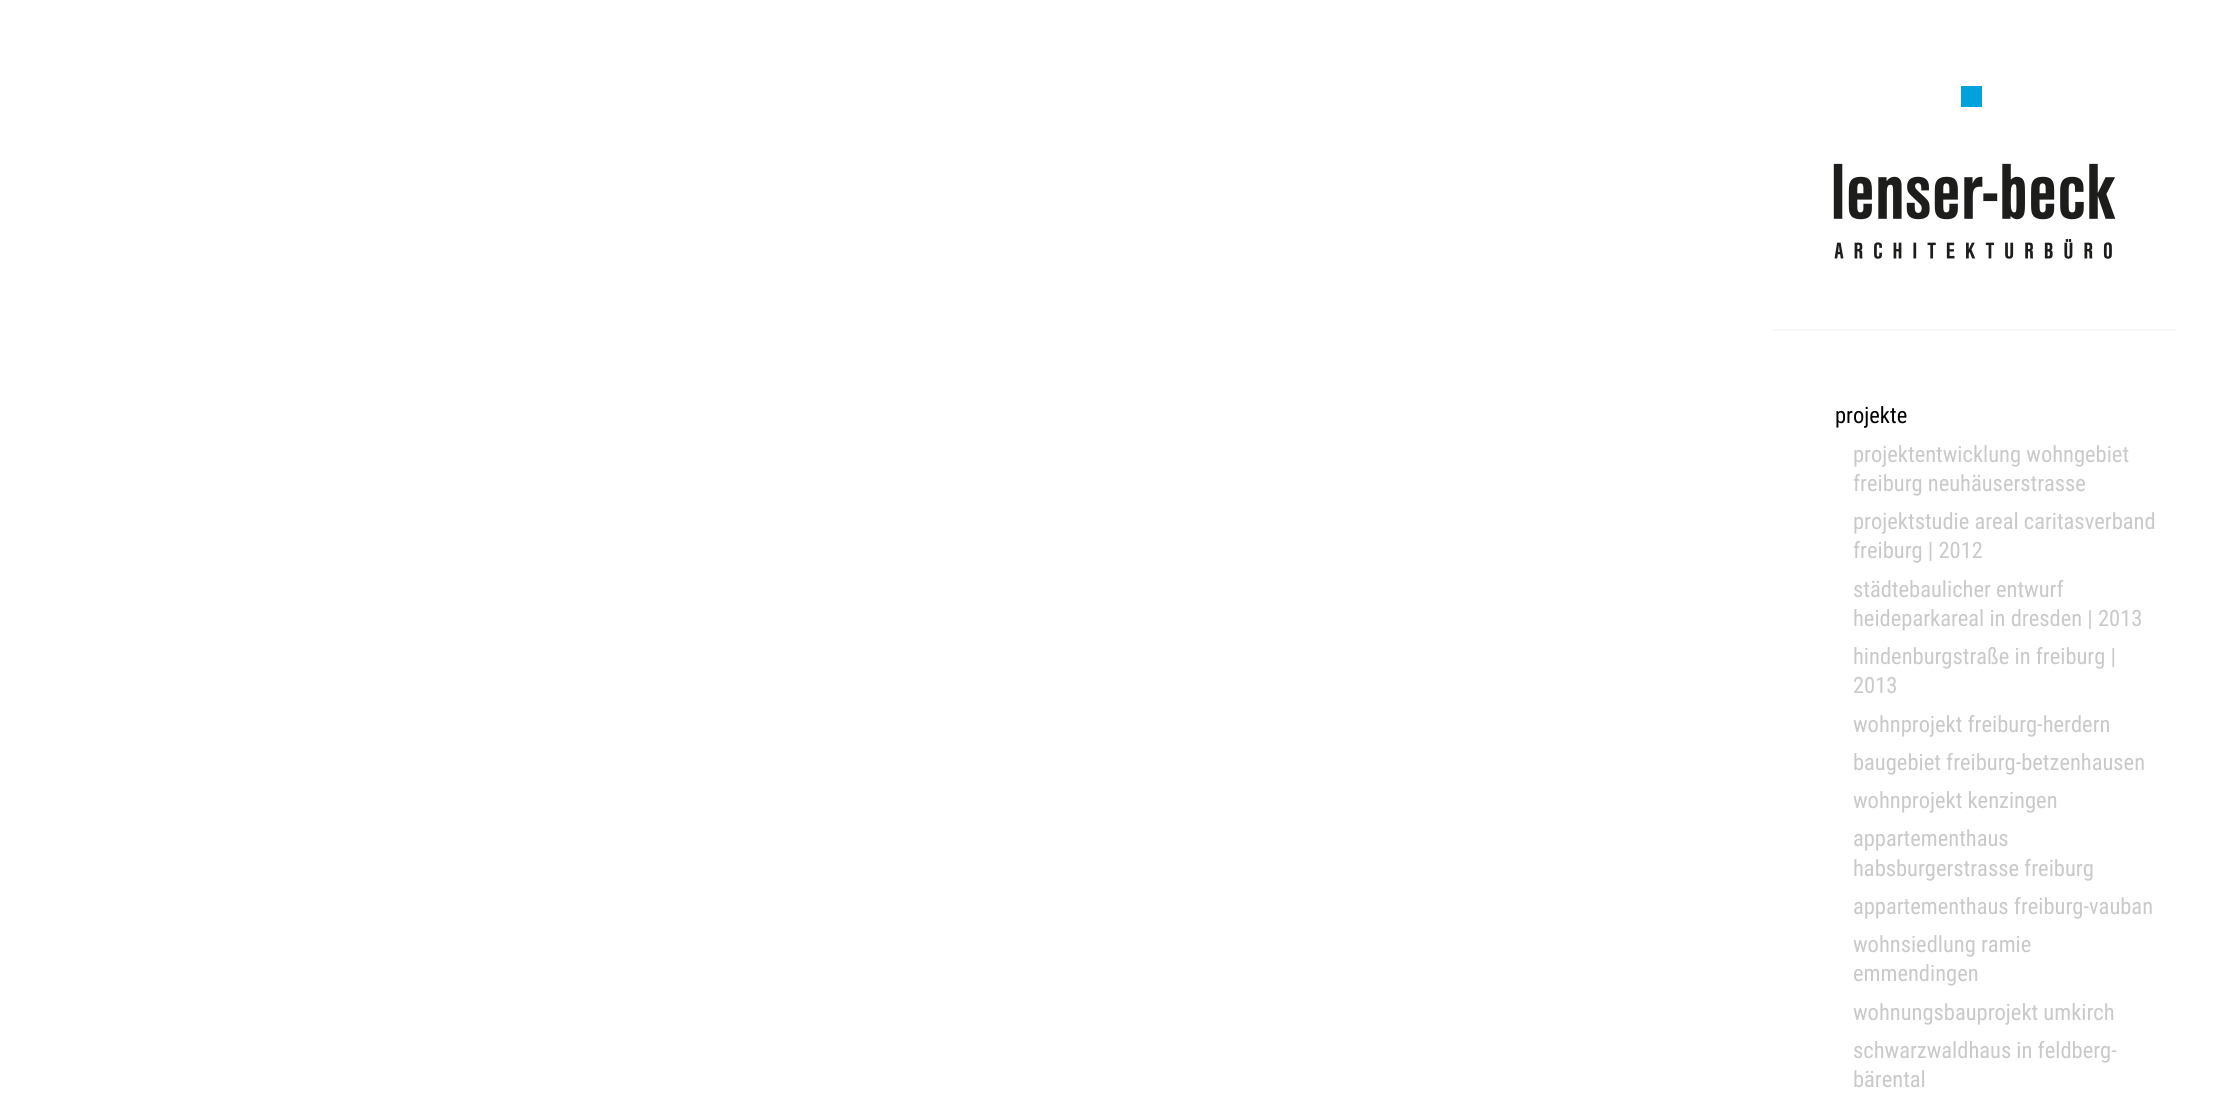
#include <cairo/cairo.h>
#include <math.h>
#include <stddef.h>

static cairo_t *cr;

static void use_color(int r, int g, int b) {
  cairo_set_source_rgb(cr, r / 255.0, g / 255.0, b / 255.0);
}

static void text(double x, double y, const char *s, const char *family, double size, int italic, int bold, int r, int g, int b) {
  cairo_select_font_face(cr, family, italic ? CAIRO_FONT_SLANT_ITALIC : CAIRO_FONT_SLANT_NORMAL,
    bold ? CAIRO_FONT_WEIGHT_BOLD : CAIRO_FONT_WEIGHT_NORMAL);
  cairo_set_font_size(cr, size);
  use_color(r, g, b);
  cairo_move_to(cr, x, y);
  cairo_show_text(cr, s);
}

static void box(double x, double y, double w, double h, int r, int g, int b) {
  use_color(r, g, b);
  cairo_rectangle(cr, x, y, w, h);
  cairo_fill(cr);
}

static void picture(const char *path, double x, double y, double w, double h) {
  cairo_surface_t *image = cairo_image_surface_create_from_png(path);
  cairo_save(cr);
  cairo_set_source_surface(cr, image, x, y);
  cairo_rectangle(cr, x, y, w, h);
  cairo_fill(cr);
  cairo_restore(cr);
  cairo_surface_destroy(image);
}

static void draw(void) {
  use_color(255, 255, 255);
  cairo_paint(cr);
  box(1772, 329, 405, 2, 248, 248, 248);
  picture("img_01.png", 1833, 86, 283, 173);
  text(1835, 423, "projekte", "Roboto Condensed", 22.5, 0, 0, 0, 0, 0);
  text(1853, 462, "projektentwicklung wohngebiet", "Roboto Condensed", 22.5, 0, 0, 201, 201, 201);
  text(1853, 491, "freiburg neuhäuserstrasse", "Roboto Condensed", 22.5, 0, 0, 201, 201, 201);
  text(1853, 529, "projektstudie areal caritasverband", "Roboto Condensed", 22.5, 0, 0, 201, 201, 201);
  text(1853, 558, "freiburg | 2012", "Roboto Condensed", 22.5, 0, 0, 201, 201, 201);
  text(1853, 597, "städtebaulicher entwurf", "Roboto Condensed", 22.5, 0, 0, 201, 201, 201);
  text(1853, 626, "heideparkareal in dresden | 2013", "Roboto Condensed", 22.5, 0, 0, 201, 201, 201);
  text(1853, 664, "hindenburgstraße in freiburg |", "Roboto Condensed", 22.5, 0, 0, 201, 201, 201);
  text(1853, 693, "2013", "Roboto Condensed", 22.5, 0, 0, 201, 201, 201);
  text(1853, 732, "wohnprojekt freiburg-herdern", "Roboto Condensed", 22.5, 0, 0, 201, 201, 201);
  text(1853, 770, "baugebiet freiburg-betzenhausen", "Roboto Condensed", 22.5, 0, 0, 201, 201, 201);
  text(1853, 808, "wohnprojekt kenzingen", "Roboto Condensed", 22.5, 0, 0, 201, 201, 201);
  text(1853, 846, "appartementhaus", "Roboto Condensed", 22.5, 0, 0, 201, 201, 201);
  text(1853, 876, "habsburgerstrasse freiburg", "Roboto Condensed", 22.5, 0, 0, 201, 201, 201);
  text(1853, 914, "appartementhaus freiburg-vauban", "Roboto Condensed", 22.5, 0, 0, 201, 201, 201);
  text(1853, 952, "wohnsiedlung ramie", "Roboto Condensed", 22.5, 0, 0, 201, 201, 201);
  text(1853, 981, "emmendingen", "Roboto Condensed", 22.5, 0, 0, 201, 201, 201);
  text(1853, 1020, "wohnungsbauprojekt umkirch", "Roboto Condensed", 22.5, 0, 0, 201, 201, 201);
  text(1853, 1058, "schwarzwaldhaus in feldberg-", "Roboto Condensed", 22.5, 0, 0, 201, 201, 201);
  text(1853, 1087, "bärental", "Roboto Condensed", 22.5, 0, 0, 201, 201, 201);
}

int main(void) {
  cairo_surface_t *surface = cairo_image_surface_create(CAIRO_FORMAT_RGB24, 2221, 1094);
  cr = cairo_create(surface);
  cairo_font_options_t *options = cairo_font_options_create();
  cairo_font_options_set_hint_metrics(options, CAIRO_HINT_METRICS_OFF);
  cairo_font_options_set_hint_style(options, CAIRO_HINT_STYLE_NONE);
  cairo_set_font_options(cr, options);
  cairo_set_miter_limit(cr, 4);
  draw();
  cairo_surface_write_to_png(surface, "out.png");
  cairo_font_options_destroy(options);
  cairo_destroy(cr);
  cairo_surface_destroy(surface);
  return 0;
}
